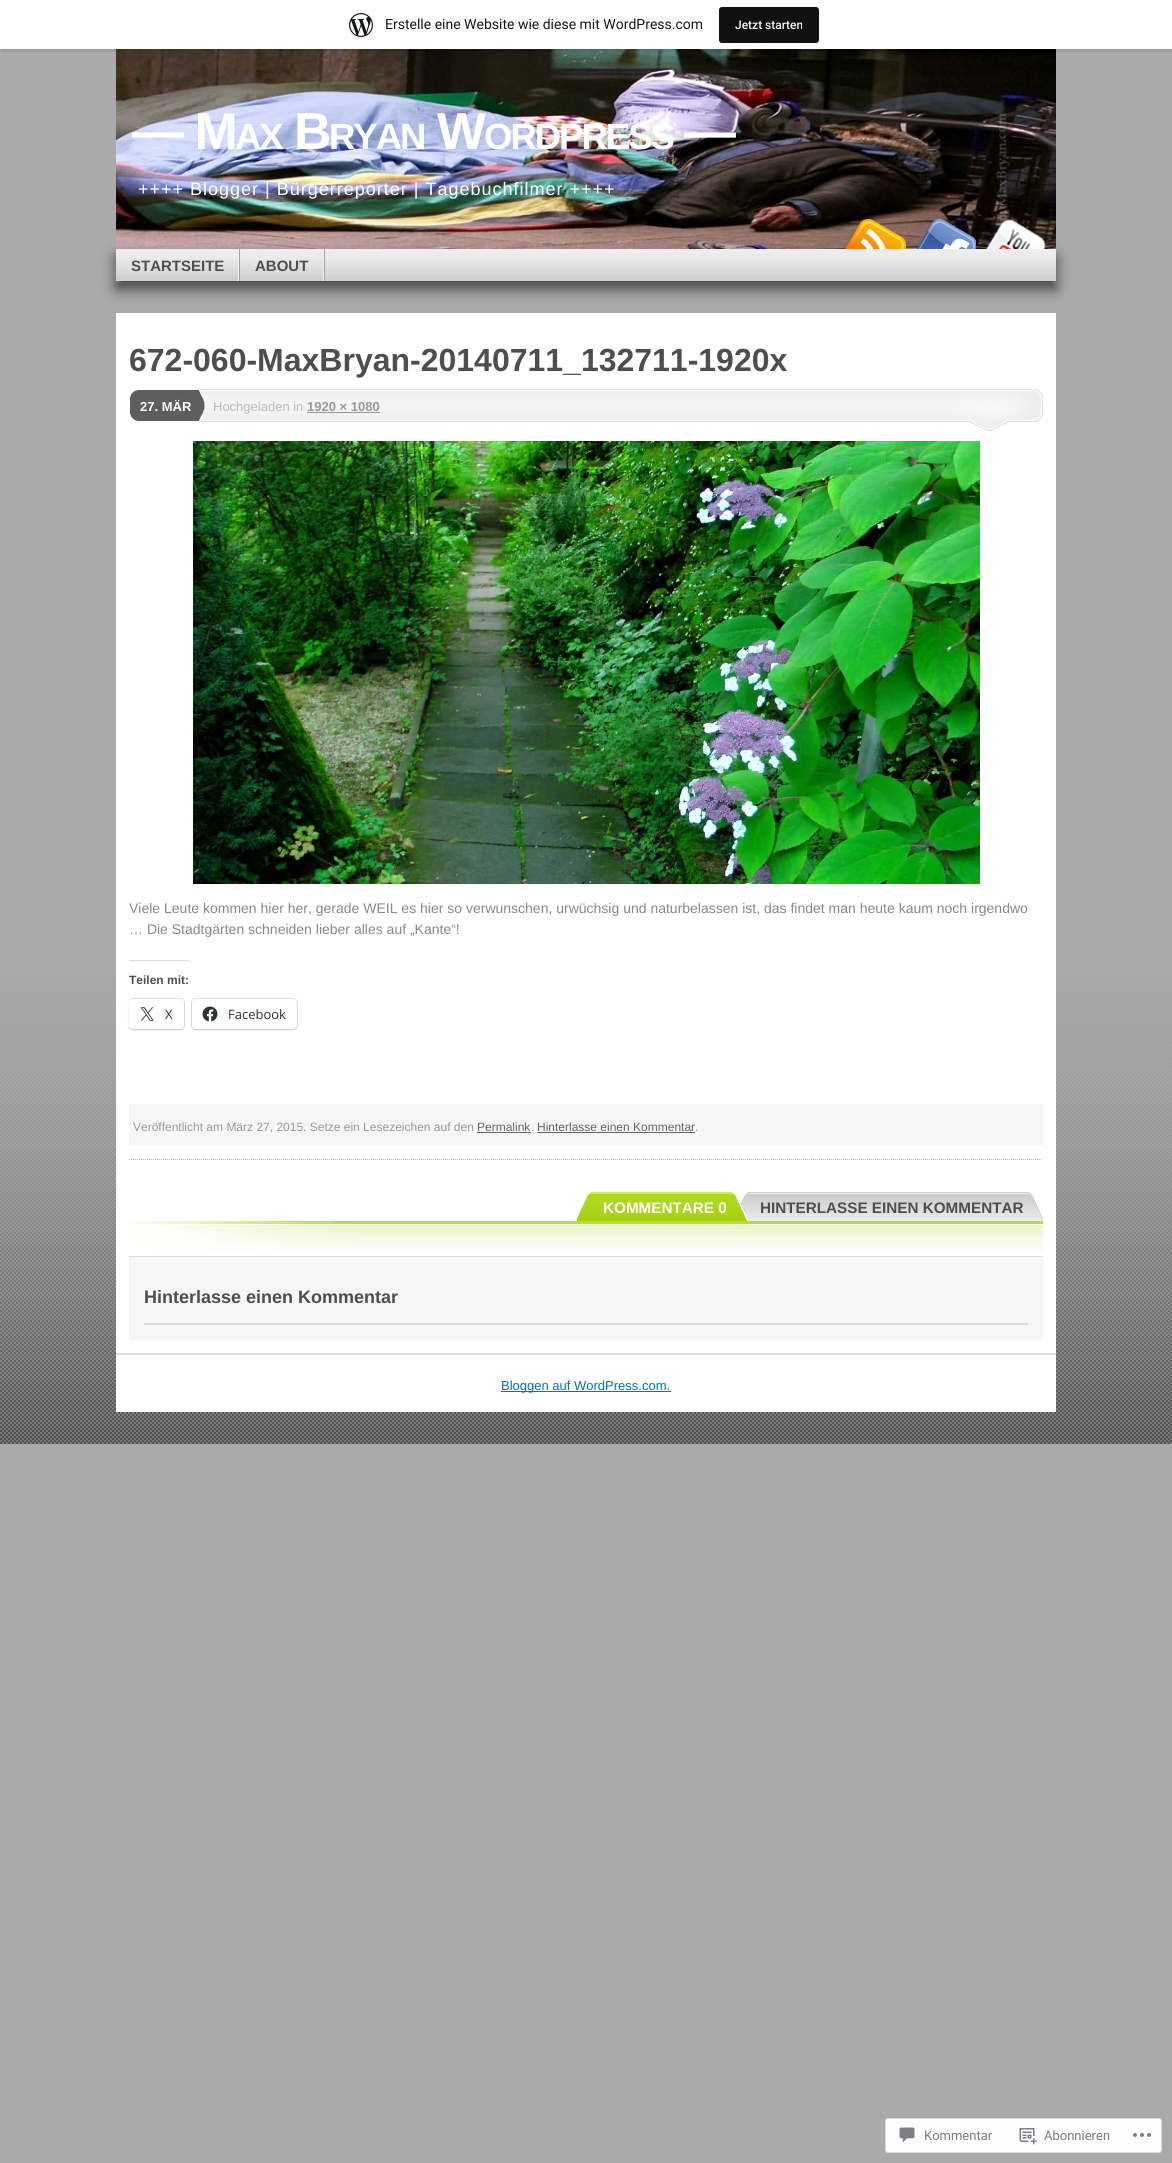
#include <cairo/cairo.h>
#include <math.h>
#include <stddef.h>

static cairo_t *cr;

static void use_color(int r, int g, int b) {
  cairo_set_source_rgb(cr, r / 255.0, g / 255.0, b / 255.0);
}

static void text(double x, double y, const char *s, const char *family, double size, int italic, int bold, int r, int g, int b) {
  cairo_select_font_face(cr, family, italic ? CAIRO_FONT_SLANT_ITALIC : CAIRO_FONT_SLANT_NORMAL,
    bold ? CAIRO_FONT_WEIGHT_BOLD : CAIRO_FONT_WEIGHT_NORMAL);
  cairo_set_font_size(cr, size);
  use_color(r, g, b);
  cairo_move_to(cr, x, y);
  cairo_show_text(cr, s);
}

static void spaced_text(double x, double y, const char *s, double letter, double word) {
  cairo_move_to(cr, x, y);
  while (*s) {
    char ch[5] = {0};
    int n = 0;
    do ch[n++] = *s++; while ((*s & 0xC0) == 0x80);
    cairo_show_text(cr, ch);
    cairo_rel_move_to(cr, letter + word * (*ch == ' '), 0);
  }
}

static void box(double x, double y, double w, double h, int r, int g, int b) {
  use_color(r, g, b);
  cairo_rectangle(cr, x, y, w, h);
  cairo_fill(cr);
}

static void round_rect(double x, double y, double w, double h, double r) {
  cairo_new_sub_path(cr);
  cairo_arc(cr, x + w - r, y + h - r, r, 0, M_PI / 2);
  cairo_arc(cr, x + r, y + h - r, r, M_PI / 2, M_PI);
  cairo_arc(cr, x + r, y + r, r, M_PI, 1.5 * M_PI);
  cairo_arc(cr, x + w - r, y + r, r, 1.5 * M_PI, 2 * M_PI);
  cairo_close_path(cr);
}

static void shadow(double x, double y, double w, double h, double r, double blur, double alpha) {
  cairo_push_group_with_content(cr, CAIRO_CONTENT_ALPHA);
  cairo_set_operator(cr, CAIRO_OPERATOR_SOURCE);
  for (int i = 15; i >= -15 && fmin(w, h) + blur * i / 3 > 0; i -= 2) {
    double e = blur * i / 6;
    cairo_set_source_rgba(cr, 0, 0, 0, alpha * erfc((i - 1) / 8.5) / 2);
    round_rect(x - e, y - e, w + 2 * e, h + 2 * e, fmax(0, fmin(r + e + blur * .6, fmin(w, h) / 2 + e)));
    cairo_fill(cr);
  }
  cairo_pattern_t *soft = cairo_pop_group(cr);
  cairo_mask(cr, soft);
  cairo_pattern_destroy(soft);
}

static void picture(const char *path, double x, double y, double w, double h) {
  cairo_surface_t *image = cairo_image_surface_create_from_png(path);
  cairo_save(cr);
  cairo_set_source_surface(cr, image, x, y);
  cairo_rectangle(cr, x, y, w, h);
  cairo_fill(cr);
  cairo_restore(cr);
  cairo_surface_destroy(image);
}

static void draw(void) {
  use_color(170, 170, 170);
  cairo_paint(cr);
  picture("img_01.png", 0, 976, 1172, 468);
  picture("img_03.png", 116, 49, 940, 200);
  cairo_set_source_rgba(cr, 0, 0, 0, 0.08);
  cairo_new_path(cr);
  cairo_move_to(cr, 1, 49);
  cairo_line_to(cr, 1, 52);
  cairo_line_to(cr, 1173, 52);
  cairo_line_to(cr, 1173, 3);
  cairo_line_to(cr, 1172, 3);
  cairo_line_to(cr, 1172, 49);
  cairo_close_path(cr);
  cairo_fill(cr);
  box(0, 0, 1172, 49, 255, 255, 255);
  picture("img_02.png", 349, 13, 24, 24);
  use_color(17, 17, 17);
  round_rect(719, 7, 100, 36, 3);
  cairo_fill(cr);
  use_color(0, 0, 0);
  shadow(116, 257, 940, 32, 0, 7, 0.6);
  box(116, 276, 940, 5, 208, 208, 208);
  picture("img_04.png", 845, 219, 61, 30);
  picture("img_05.png", 916, 219, 60, 30);
  picture("img_06.png", 986, 219, 60, 30);
  picture("img_07.png", 116, 249, 940, 27);
  picture("img_08.png", 238, 249, 2, 32);
  picture("img_08.png", 323, 249, 2, 32);
  box(116, 313, 940, 1040, 255, 255, 255);
  picture("img_09.png", 129, 1159, 913, 1);
  picture("img_10.png", 130, 390, 11, 31);
  picture("img_11.png", 141, 389, 66, 33);
  picture("img_12.png", 207, 389, 836, 42);
  box(307, 412, 73, 1, 153, 153, 153);
  picture("img_13.png", 193, 441, 787, 443);
  box(129, 960, 60, 1, 220, 220, 222);
  cairo_save(cr);
  cairo_rectangle(cr, 129, 441, 914, 663);
  cairo_clip(cr);
  round_rect(128.5, 998.5, 56, 31, 4.5);
  use_color(224, 224, 224);
  cairo_set_line_width(cr, 1);
  cairo_stroke(cr);
  cairo_restore(cr);
  use_color(0, 0, 0);
  shadow(129, 1000, 55, 30, 4, 1, 0.12);
  use_color(255, 255, 255);
  round_rect(129, 999, 55, 30, 4);
  cairo_fill(cr);
  picture("img_14.png", 140, 1007, 14, 14);
  round_rect(191.5, 998.5, 106, 31, 4.5);
  use_color(224, 224, 224);
  cairo_set_line_width(cr, 1);
  cairo_stroke(cr);
  use_color(0, 0, 0);
  shadow(192, 1000, 105, 30, 4, 1, 0.12);
  use_color(255, 255, 255);
  round_rect(192, 999, 105, 30, 4);
  cairo_fill(cr);
  picture("img_15.png", 202, 1006, 16, 16);
  box(129, 1104, 914, 41, 246, 246, 246);
  box(477, 1132, 54, 1, 102, 102, 102);
  box(537, 1132, 158, 1, 102, 102, 102);
  picture("img_16.png", 129, 1221, 914, 30);
  picture("img_20.png", 740, 1192, 287, 29);
  picture("img_17.png", 730, 1192, 18, 29);
  picture("img_18.png", 577, 1192, 153, 29);
  picture("img_19.png", 1027, 1192, 16, 29);
  box(129, 1257, 914, 83, 246, 246, 246);
  box(129, 1256, 914, 1, 221, 221, 221);
  box(144, 1323, 884, 2, 220, 220, 222);
  box(116, 1355, 940, 57, 255, 255, 255);
  box(116, 1353, 940, 2, 221, 221, 221);
  box(501, 1391, 170, 1, 0, 113, 187);
  use_color(253, 253, 253);
  round_rect(885.5, 2118.5, 276, 34, 2.5);
  cairo_fill_preserve(cr);
  use_color(219, 219, 221);
  cairo_stroke(cr);
  picture("img_21.png", 899, 2127, 16, 16);
  picture("img_22.png", 1019, 2128, 18, 17);
  picture("img_23.png", 1133, 2133, 18, 4);
  text(385, 29, "Erstelle eine Website wie diese mit WordPress.com", "Roboto", 14, 0, 0, 23, 23, 23);
  text(735, 29, "Jetzt starten", "Roboto Medium", 12, 0, 0, 246, 247, 247);
  cairo_select_font_face(cr, "Liberation Sans", CAIRO_FONT_SLANT_NORMAL, CAIRO_FONT_WEIGHT_BOLD);
  cairo_set_font_size(cr, 52);
  use_color(255, 255, 255);
  spaced_text(132, 149, "— M", -2, 0);
  cairo_set_font_size(cr, 36.5);
  spaced_text(235, 149, "AX", -2, 0);
  cairo_set_font_size(cr, 52);
  spaced_text(294, 149, "B", -2, 0);
  cairo_set_font_size(cr, 36.5);
  spaced_text(329, 149, "RYAN", -2, 0);
  cairo_set_font_size(cr, 52);
  spaced_text(437, 149, "W", -2, 0);
  cairo_set_font_size(cr, 36.5);
  spaced_text(484, 149, "ORDPRESS", -2, 0);
  cairo_set_font_size(cr, 52);
  spaced_text(684, 149, "—", -2, 0);
  cairo_select_font_face(cr, "Liberation Sans", CAIRO_FONT_SLANT_NORMAL, CAIRO_FONT_WEIGHT_NORMAL);
  cairo_set_font_size(cr, 18);
  spaced_text(138, 195, "++++ Blogger | Bürgerreporter | Tagebuchfilmer ++++", 1, 0);
  text(131, 271, "STARTSEITE", "Liberation Sans", 15, 0, 1, 78, 78, 78);
  text(255, 271, "ABOUT", "Liberation Sans", 15, 0, 1, 78, 78, 78);
  text(129, 371, "672-060-MaxBryan-20140711_132711-1920x", "Liberation Sans", 32, 0, 1, 78, 78, 78);
  text(140, 411, "27. MÄR", "Liberation Sans", 13, 0, 1, 255, 255, 255);
  text(213, 411, "Hochgeladen in", "Liberation Sans", 13, 0, 0, 187, 187, 187);
  text(307, 411, "1920 × 1080", "Liberation Sans", 13, 0, 1, 153, 153, 153);
  text(129, 913, "Viele Leute kommen hier her, gerade WEIL es hier so verwunschen, urwüchsig und naturbelassen ist, das findet man heute kaum noch irgendwo", "Liberation Sans", 14, 0, 0, 136, 136, 136);
  text(129, 934, "… Die Stadtgärten schneiden lieber alles auf „Kante“!", "Liberation Sans", 14, 0, 0, 136, 136, 136);
  text(129, 984, "Teilen mit:", "Liberation Sans", 12, 0, 1, 78, 78, 78);
  text(165, 1019, "X", "Open Sans", 13, 0, 0, 44, 51, 56);
  text(228, 1019, "Facebook", "Open Sans", 13, 0, 0, 44, 51, 56);
  text(133, 1131, "Veröffentlicht am März 27, 2015. Setze ein Lesezeichen auf den", "Liberation Sans", 12, 0, 0, 153, 153, 153);
  text(477, 1131, "Permalink", "Liberation Sans", 12, 0, 0, 102, 102, 102);
  text(531, 1131, ".", "Liberation Sans", 12, 0, 0, 153, 153, 153);
  text(537, 1131, "Hinterlasse einen Kommentar", "Liberation Sans", 12, 0, 0, 102, 102, 102);
  text(695, 1131, ".", "Liberation Sans", 12, 0, 0, 153, 153, 153);
  text(603, 1213, "KOMMENTARE 0", "Liberation Sans", 15.25, 0, 1, 255, 255, 255);
  text(760, 1213, "HINTERLASSE EINEN KOMMENTAR", "Liberation Sans", 15.25, 0, 1, 78, 78, 78);
  text(144, 1303, "Hinterlasse einen Kommentar", "Liberation Sans", 18, 0, 1, 78, 78, 78);
  text(501, 1390, "Bloggen auf WordPress.com.", "Liberation Sans", 13, 0, 0, 0, 113, 187);
  text(924, 2140, "Kommentar", "Roboto", 13, 0, 0, 121, 125, 131);
  text(1044, 2140, "Abonnieren", "Roboto", 13, 0, 0, 121, 125, 131);
}

int main(void) {
  cairo_surface_t *surface = cairo_image_surface_create(CAIRO_FORMAT_RGB24, 1172, 2163);
  cr = cairo_create(surface);
  cairo_font_options_t *options = cairo_font_options_create();
  cairo_font_options_set_hint_metrics(options, CAIRO_HINT_METRICS_OFF);
  cairo_font_options_set_hint_style(options, CAIRO_HINT_STYLE_NONE);
  cairo_set_font_options(cr, options);
  cairo_set_miter_limit(cr, 4);
  draw();
  cairo_surface_write_to_png(surface, "out.png");
  cairo_font_options_destroy(options);
  cairo_destroy(cr);
  cairo_surface_destroy(surface);
  return 0;
}
